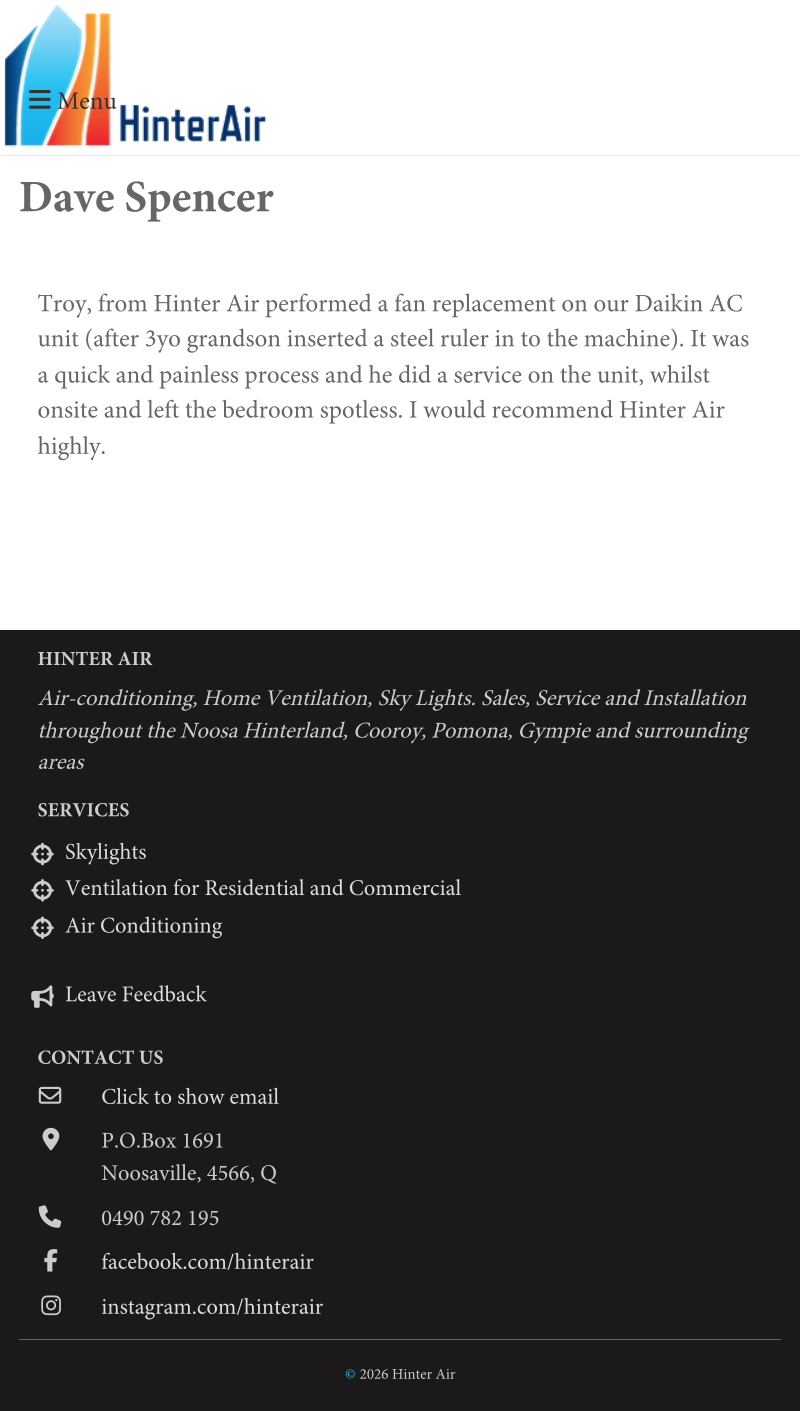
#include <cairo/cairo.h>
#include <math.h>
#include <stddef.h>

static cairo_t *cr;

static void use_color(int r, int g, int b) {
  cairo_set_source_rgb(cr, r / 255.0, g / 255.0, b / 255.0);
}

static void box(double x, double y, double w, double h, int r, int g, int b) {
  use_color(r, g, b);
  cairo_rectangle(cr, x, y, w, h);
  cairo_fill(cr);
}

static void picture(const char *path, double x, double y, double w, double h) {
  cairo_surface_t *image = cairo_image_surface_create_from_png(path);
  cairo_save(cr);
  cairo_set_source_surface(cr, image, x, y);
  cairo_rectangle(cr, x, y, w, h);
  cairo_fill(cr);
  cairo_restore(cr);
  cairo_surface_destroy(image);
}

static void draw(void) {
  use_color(255, 255, 255);
  cairo_paint(cr);
  box(0, 155, 800, 1, 231, 231, 231);
  picture("img_01.png", 4, 5, 263, 142);
  picture("img_02.png", 28, 90, 23, 19);
  picture("img_03.png", 57, 92, 60, 17);
  picture("img_04.png", 20, 181, 254, 41);
  picture("img_05.png", 38, 293, 705, 25);
  picture("img_06.png", 38, 328, 711, 25);
  picture("img_07.png", 38, 364, 672, 25);
  picture("img_08.png", 38, 399, 687, 25);
  picture("img_09.png", 38, 436, 67, 25);
  box(0, 630, 800, 781, 28, 25, 26);
  box(19, 1339, 762, 1, 102, 102, 102);
  picture("img_10.png", 38, 651, 115, 15);
  picture("img_11.png", 38, 689, 334, 22);
  picture("img_12.png", 379, 689, 151, 22);
  picture("img_13.png", 536, 689, 211, 17);
  picture("img_14.png", 40, 721, 472, 23);
  picture("img_15.png", 520, 721, 230, 23);
  picture("img_16.png", 38, 758, 47, 11);
  picture("img_17.png", 38, 803, 91, 14);
  picture("img_18.png", 31, 842, 23, 24);
  picture("img_19.png", 66, 842, 80, 23);
  picture("img_20.png", 31, 879, 23, 23);
  picture("img_21.png", 65, 879, 396, 17);
  picture("img_22.png", 31, 916, 23, 23);
  picture("img_23.png", 65, 916, 158, 23);
  picture("img_24.png", 31, 985, 23, 23);
  picture("img_25.png", 65, 985, 142, 17);
  picture("img_26.png", 38, 1050, 125, 15);
  picture("img_27.png", 38, 1086, 24, 18);
  picture("img_28.png", 102, 1087, 177, 18);
  picture("img_29.png", 42, 1127, 18, 24);
  picture("img_30.png", 102, 1132, 121, 16);
  picture("img_31.png", 101, 1164, 176, 20);
  picture("img_32.png", 38, 1205, 24, 23);
  picture("img_33.png", 102, 1210, 117, 16);
  picture("img_34.png", 44, 1249, 14, 23);
  picture("img_35.png", 101, 1252, 213, 18);
  picture("img_36.png", 41, 1295, 20, 21);
  picture("img_37.png", 102, 1297, 221, 23);
  picture("img_38.png", 345, 1369, 10, 10);
  picture("img_39.png", 360, 1368, 96, 11);
}

int main(void) {
  cairo_surface_t *surface = cairo_image_surface_create(CAIRO_FORMAT_RGB24, 800, 1411);
  cr = cairo_create(surface);
  cairo_font_options_t *options = cairo_font_options_create();
  cairo_font_options_set_hint_metrics(options, CAIRO_HINT_METRICS_OFF);
  cairo_font_options_set_hint_style(options, CAIRO_HINT_STYLE_NONE);
  cairo_set_font_options(cr, options);
  cairo_set_miter_limit(cr, 4);
  draw();
  cairo_surface_write_to_png(surface, "out.png");
  cairo_font_options_destroy(options);
  cairo_destroy(cr);
  cairo_surface_destroy(surface);
  return 0;
}
